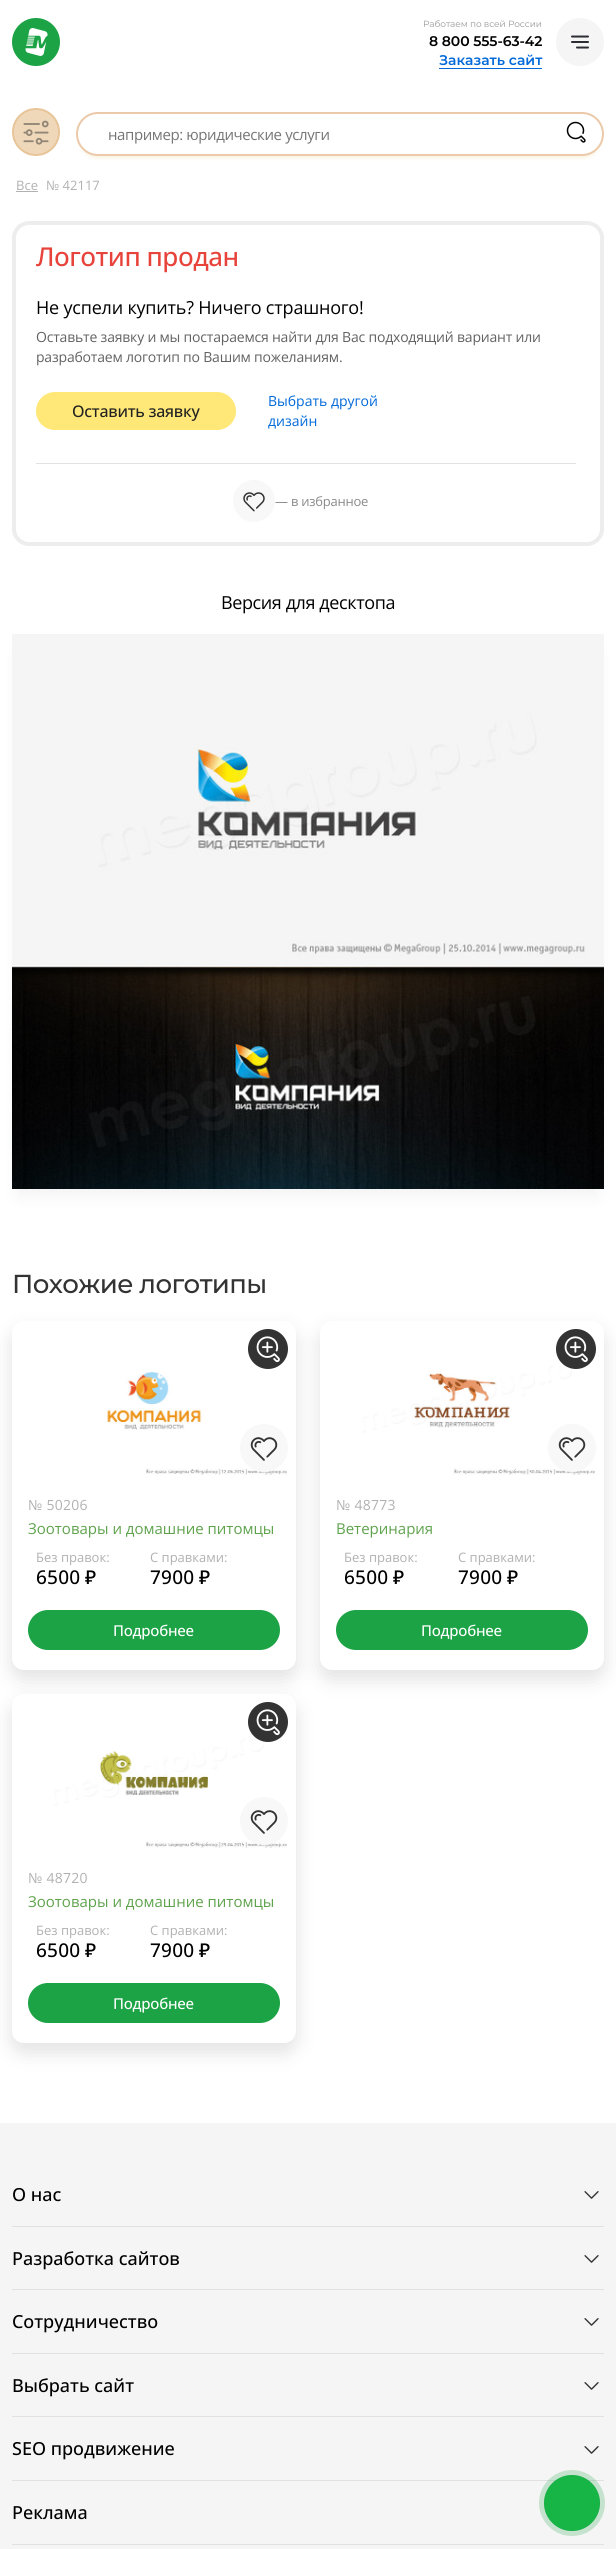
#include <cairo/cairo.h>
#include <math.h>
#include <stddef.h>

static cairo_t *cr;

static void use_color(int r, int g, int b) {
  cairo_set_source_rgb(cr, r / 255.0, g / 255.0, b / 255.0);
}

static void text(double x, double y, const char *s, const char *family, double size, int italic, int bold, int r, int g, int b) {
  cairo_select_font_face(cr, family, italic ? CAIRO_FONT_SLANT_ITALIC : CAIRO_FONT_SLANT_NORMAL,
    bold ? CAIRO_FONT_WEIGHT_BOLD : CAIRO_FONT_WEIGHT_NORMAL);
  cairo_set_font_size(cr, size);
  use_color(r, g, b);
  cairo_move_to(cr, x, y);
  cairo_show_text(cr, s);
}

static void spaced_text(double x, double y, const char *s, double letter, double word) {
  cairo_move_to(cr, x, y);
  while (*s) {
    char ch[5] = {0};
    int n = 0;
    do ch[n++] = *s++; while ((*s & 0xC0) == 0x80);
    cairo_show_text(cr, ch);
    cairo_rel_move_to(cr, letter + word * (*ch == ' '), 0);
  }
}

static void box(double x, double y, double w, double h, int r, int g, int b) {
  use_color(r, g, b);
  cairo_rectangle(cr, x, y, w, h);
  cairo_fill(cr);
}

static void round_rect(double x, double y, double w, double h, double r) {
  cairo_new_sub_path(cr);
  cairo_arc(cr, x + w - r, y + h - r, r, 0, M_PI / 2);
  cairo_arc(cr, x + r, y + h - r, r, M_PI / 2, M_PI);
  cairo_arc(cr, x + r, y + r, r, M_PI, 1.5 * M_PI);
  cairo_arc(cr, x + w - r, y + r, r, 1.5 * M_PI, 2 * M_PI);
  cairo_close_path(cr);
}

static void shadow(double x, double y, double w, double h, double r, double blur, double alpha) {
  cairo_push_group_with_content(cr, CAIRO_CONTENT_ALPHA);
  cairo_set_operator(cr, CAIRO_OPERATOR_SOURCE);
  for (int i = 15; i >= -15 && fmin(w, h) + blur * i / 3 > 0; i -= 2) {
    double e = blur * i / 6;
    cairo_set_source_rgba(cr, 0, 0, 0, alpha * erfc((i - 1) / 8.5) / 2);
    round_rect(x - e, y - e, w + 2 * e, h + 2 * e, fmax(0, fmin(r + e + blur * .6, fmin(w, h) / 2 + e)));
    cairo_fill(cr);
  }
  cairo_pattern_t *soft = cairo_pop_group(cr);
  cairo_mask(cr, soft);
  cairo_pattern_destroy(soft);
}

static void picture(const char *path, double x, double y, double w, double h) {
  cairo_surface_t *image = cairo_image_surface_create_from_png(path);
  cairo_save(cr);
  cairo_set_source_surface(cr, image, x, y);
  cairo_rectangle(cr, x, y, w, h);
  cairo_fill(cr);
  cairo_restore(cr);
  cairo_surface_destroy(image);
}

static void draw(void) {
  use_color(255, 255, 255);
  cairo_paint(cr);
  picture("img_01.png", 12, 18, 48, 48);
  box(439, 68, 103, 1, 3, 105, 217);
  use_color(245, 245, 245);
  cairo_arc(cr, 580, 42, 24, 0, 2 * M_PI);
  cairo_fill(cr);
  cairo_new_path(cr);
  cairo_move_to(cr, 572, 42);
  cairo_line_to(cr, 588, 42);
  cairo_move_to(cr, 572, 36.5);
  cairo_line_to(cr, 588, 36.5);
  cairo_move_to(cr, 577, 47.5);
  cairo_line_to(cr, 588, 47.5);
  use_color(43, 45, 51);
  cairo_set_line_cap(cr, CAIRO_LINE_CAP_ROUND);
  cairo_set_line_join(cr, CAIRO_LINE_JOIN_ROUND);
  cairo_stroke(cr);
  use_color(239, 216, 185);
  cairo_arc(cr, 36, 132, 23, 0, 2 * M_PI);
  cairo_fill_preserve(cr);
  use_color(231, 197, 152);
  cairo_set_line_cap(cr, CAIRO_LINE_CAP_BUTT);
  cairo_set_line_join(cr, CAIRO_LINE_JOIN_MITER);
  cairo_stroke(cr);
  picture("img_02.png", 23, 120, 26, 25);
  use_color(233, 205, 130);
  shadow(80, 122, 520, 36, 18, 2, 0.27);
  use_color(255, 255, 255);
  round_rect(77, 113, 526, 42, 21);
  cairo_fill_preserve(cr);
  use_color(235, 201, 169);
  cairo_stroke(cr);
  picture("img_03.png", 566, 121, 20, 22);
  box(16, 191, 22, 1, 177, 177, 177);
  round_rect(14, 223, 588, 321, 15);
  use_color(237, 237, 237);
  cairo_set_line_width(cr, 4);
  cairo_stroke(cr);
  use_color(255, 232, 119);
  round_rect(36, 392, 200, 38, 19);
  cairo_fill(cr);
  box(36, 463, 540, 1, 226, 226, 226);
  use_color(248, 248, 248);
  cairo_arc(cr, 254, 501, 21, 0, 2 * M_PI);
  cairo_fill(cr);
  picture("img_04.png", 243, 492, 22, 20);
  use_color(0, 0, 0);
  shadow(18, 653, 580, 543, 0, 8, 0.05);
  picture("img_05.png", 12, 634, 592, 555);
  shadow(12, 1330, 284, 349, 12, 10.5, 0.12);
  use_color(255, 255, 255);
  round_rect(12, 1321, 284, 349, 12);
  cairo_fill(cr);
  use_color(51, 51, 51);
  cairo_arc(cr, 268, 1349, 20, 0, 2 * M_PI);
  cairo_fill(cr);
  picture("img_06.png", 256, 1336, 24, 27);
  picture("img_07.png", 107, 1371, 180, 104);
  use_color(248, 248, 248);
  cairo_arc(cr, 264, 1448, 24, 0, 2 * M_PI);
  cairo_fill(cr);
  picture("img_08.png", 250, 1437, 28, 24);
  use_color(28, 163, 69);
  round_rect(28, 1610, 252, 40, 20);
  cairo_fill(cr);
  use_color(0, 0, 0);
  shadow(320, 1330, 284, 349, 12, 10.5, 0.12);
  use_color(255, 255, 255);
  round_rect(320, 1321, 284, 349, 12);
  cairo_fill(cr);
  picture("img_09.png", 362, 1365, 233, 110);
  cairo_set_source_rgba(cr, 0, 0, 0, 0.8);
  cairo_arc(cr, 576, 1349, 20, 0, 2 * M_PI);
  cairo_fill(cr);
  picture("img_06.png", 564, 1336, 24, 27);
  use_color(248, 248, 248);
  cairo_arc(cr, 572, 1448, 24, 0, 2 * M_PI);
  cairo_fill(cr);
  picture("img_08.png", 558, 1437, 28, 24);
  use_color(28, 163, 69);
  round_rect(336, 1610, 252, 40, 20);
  cairo_fill(cr);
  use_color(0, 0, 0);
  shadow(12, 1703, 284, 349, 12, 10.5, 0.12);
  use_color(255, 255, 255);
  round_rect(12, 1694, 284, 349, 12);
  cairo_fill(cr);
  picture("img_10.png", 54, 1738, 233, 110);
  cairo_set_source_rgba(cr, 0, 0, 0, 0.8);
  cairo_arc(cr, 268, 1722, 20, 0, 2 * M_PI);
  cairo_fill(cr);
  picture("img_06.png", 256, 1709, 24, 27);
  use_color(248, 248, 248);
  cairo_arc(cr, 264, 1821, 24, 0, 2 * M_PI);
  cairo_fill(cr);
  picture("img_08.png", 250, 1810, 28, 24);
  use_color(28, 163, 69);
  round_rect(28, 1983, 252, 40, 20);
  cairo_fill(cr);
  box(0, 2123, 616, 426, 244, 245, 244);
  picture("img_11.png", 584, 2191, 15, 8);
  box(12, 2226, 592, 1, 225, 225, 225);
  picture("img_11.png", 584, 2255, 15, 8);
  box(12, 2289, 592, 1, 225, 225, 225);
  picture("img_11.png", 584, 2318, 15, 8);
  box(12, 2353, 592, 1, 225, 225, 225);
  picture("img_11.png", 584, 2382, 15, 8);
  box(12, 2416, 592, 1, 225, 225, 225);
  picture("img_11.png", 584, 2446, 15, 8);
  box(12, 2480, 592, 1, 225, 225, 225);
  picture("img_12.png", 598, 2510, 1, 1);
  box(12, 2544, 592, 1, 225, 225, 225);
  use_color(21, 187, 71);
  cairo_arc(cr, 572, 2503, 28, 0, 2 * M_PI);
  cairo_fill(cr);
  cairo_set_source_rgba(cr, 0.11, 0.639, 0.271, 0.22);
  cairo_arc(cr, 572, 2503, 33, 0, 2 * M_PI);
  cairo_fill(cr);
  cairo_arc(cr, 572, 2503, 27.5, 0, 2 * M_PI);
  cairo_set_line_width(cr, 1);
  cairo_stroke(cr);
  cairo_select_font_face(cr, "Montserrat", CAIRO_FONT_SLANT_NORMAL, CAIRO_FONT_WEIGHT_NORMAL);
  cairo_set_font_size(cr, 9);
  use_color(153, 153, 153);
  spaced_text(423, 27, "Работаем по всей России", -0.1, 0);
  cairo_select_font_face(cr, "Montserrat SemiBold", CAIRO_FONT_SLANT_NORMAL, CAIRO_FONT_WEIGHT_NORMAL);
  cairo_set_font_size(cr, 14);
  use_color(0, 0, 0);
  spaced_text(429, 46, "8 800 555-63-42", -0.1, 0);
  text(439, 65, "Заказать сайт", "Montserrat SemiBold", 14, 0, 0, 1, 105, 217);
  cairo_select_font_face(cr, "Open Sans", CAIRO_FONT_SLANT_NORMAL, CAIRO_FONT_WEIGHT_NORMAL);
  cairo_set_font_size(cr, 15);
  use_color(117, 117, 117);
  spaced_text(108, 140, "например: юридические услуги", -0.4, 0);
  text(16, 190, "Все", "Open Sans", 13, 0, 0, 177, 177, 177);
  text(46, 190, "№ 42117", "Open Sans", 13, 0, 0, 177, 177, 177);
  cairo_select_font_face(cr, "Open Sans Medium", CAIRO_FONT_SLANT_NORMAL, CAIRO_FONT_WEIGHT_NORMAL);
  cairo_set_font_size(cr, 26);
  use_color(231, 67, 58);
  spaced_text(36, 266, "Логотип продан", -0.5, 0);
  cairo_select_font_face(cr, "Open Sans", CAIRO_FONT_SLANT_NORMAL, CAIRO_FONT_WEIGHT_NORMAL);
  cairo_set_font_size(cr, 18);
  use_color(0, 0, 0);
  spaced_text(36, 314, "Не успели купить? Ничего страшного!", -0.2, 0);
  cairo_set_font_size(cr, 14);
  use_color(98, 98, 98);
  spaced_text(36, 342, "Оставьте заявку и мы постараемся найти для Вас подходящий вариант или", -0.2, 0);
  spaced_text(36, 362, "разработаем логотип по Вашим пожеланиям.", -0.2, 0);
  cairo_select_font_face(cr, "Open Sans Medium", CAIRO_FONT_SLANT_NORMAL, CAIRO_FONT_WEIGHT_NORMAL);
  cairo_set_font_size(cr, 16);
  use_color(33, 33, 33);
  spaced_text(72, 417, "Оставить заявку", -0.25, 0);
  text(268, 406, "Выбрать другой", "Open Sans", 14, 0, 0, 1, 105, 217);
  text(268, 426, "дизайн", "Open Sans", 14, 0, 0, 1, 105, 217);
  cairo_set_font_size(cr, 13);
  use_color(138, 138, 138);
  spaced_text(275, 506, "— в избранное", -0.25, 0);
  cairo_set_font_size(cr, 18);
  use_color(0, 0, 0);
  spaced_text(221, 609, "Версия для десктопа", -0.4, 0);
  cairo_select_font_face(cr, "Montserrat Medium", CAIRO_FONT_SLANT_NORMAL, CAIRO_FONT_WEIGHT_NORMAL);
  cairo_set_font_size(cr, 26);
  use_color(51, 51, 51);
  spaced_text(12, 1293, "Похожие логотипы", -0.6, 0);
  cairo_select_font_face(cr, "Open Sans", CAIRO_FONT_SLANT_NORMAL, CAIRO_FONT_WEIGHT_NORMAL);
  cairo_set_font_size(cr, 14);
  use_color(177, 177, 177);
  spaced_text(28, 1510, "№ 50206", 0.25, 0);
  text(28, 1534, "Зоотовары и домашние питомцы", "Open Sans", 15, 0, 0, 94, 163, 76);
  text(36, 1562, "Без правок:", "Open Sans", 13, 0, 0, 177, 177, 177);
  cairo_select_font_face(cr, "Open Sans Medium", CAIRO_FONT_SLANT_NORMAL, CAIRO_FONT_WEIGHT_NORMAL);
  cairo_set_font_size(cr, 19);
  use_color(0, 0, 0);
  spaced_text(36, 1584, "6500", 0.25, 0);
  cairo_select_font_face(cr, "Noto Sans Medium", CAIRO_FONT_SLANT_NORMAL, CAIRO_FONT_WEIGHT_NORMAL);
  spaced_text(85, 1584, "₽", 0.25, 0);
  text(150, 1562, "С правками:", "Open Sans", 13, 0, 0, 177, 177, 177);
  cairo_select_font_face(cr, "Open Sans Medium", CAIRO_FONT_SLANT_NORMAL, CAIRO_FONT_WEIGHT_NORMAL);
  cairo_set_font_size(cr, 19);
  use_color(0, 0, 0);
  spaced_text(150, 1584, "7900", 0.25, 0);
  cairo_select_font_face(cr, "Noto Sans Medium", CAIRO_FONT_SLANT_NORMAL, CAIRO_FONT_WEIGHT_NORMAL);
  spaced_text(199, 1584, "₽", 0.25, 0);
  cairo_select_font_face(cr, "Open Sans Medium", CAIRO_FONT_SLANT_NORMAL, CAIRO_FONT_WEIGHT_NORMAL);
  cairo_set_font_size(cr, 15);
  use_color(255, 255, 255);
  spaced_text(113, 1636, "Подробнее", -0.25, 0);
  cairo_select_font_face(cr, "Open Sans", CAIRO_FONT_SLANT_NORMAL, CAIRO_FONT_WEIGHT_NORMAL);
  cairo_set_font_size(cr, 14);
  use_color(177, 177, 177);
  spaced_text(336, 1510, "№ 48773", 0.25, 0);
  text(336, 1534, "Ветеринария", "Open Sans", 15, 0, 0, 94, 163, 76);
  text(344, 1562, "Без правок:", "Open Sans", 13, 0, 0, 177, 177, 177);
  cairo_select_font_face(cr, "Open Sans Medium", CAIRO_FONT_SLANT_NORMAL, CAIRO_FONT_WEIGHT_NORMAL);
  cairo_set_font_size(cr, 19);
  use_color(0, 0, 0);
  spaced_text(344, 1584, "6500", 0.25, 0);
  cairo_select_font_face(cr, "Noto Sans Medium", CAIRO_FONT_SLANT_NORMAL, CAIRO_FONT_WEIGHT_NORMAL);
  spaced_text(393, 1584, "₽", 0.25, 0);
  text(458, 1562, "С правками:", "Open Sans", 13, 0, 0, 177, 177, 177);
  cairo_select_font_face(cr, "Open Sans Medium", CAIRO_FONT_SLANT_NORMAL, CAIRO_FONT_WEIGHT_NORMAL);
  cairo_set_font_size(cr, 19);
  use_color(0, 0, 0);
  spaced_text(458, 1584, "7900", 0.25, 0);
  cairo_select_font_face(cr, "Noto Sans Medium", CAIRO_FONT_SLANT_NORMAL, CAIRO_FONT_WEIGHT_NORMAL);
  spaced_text(507, 1584, "₽", 0.25, 0);
  cairo_select_font_face(cr, "Open Sans Medium", CAIRO_FONT_SLANT_NORMAL, CAIRO_FONT_WEIGHT_NORMAL);
  cairo_set_font_size(cr, 15);
  use_color(255, 255, 255);
  spaced_text(421, 1636, "Подробнее", -0.25, 0);
  cairo_select_font_face(cr, "Open Sans", CAIRO_FONT_SLANT_NORMAL, CAIRO_FONT_WEIGHT_NORMAL);
  cairo_set_font_size(cr, 14);
  use_color(177, 177, 177);
  spaced_text(28, 1883, "№ 48720", 0.25, 0);
  text(28, 1907, "Зоотовары и домашние питомцы", "Open Sans", 15, 0, 0, 94, 163, 76);
  text(36, 1935, "Без правок:", "Open Sans", 13, 0, 0, 177, 177, 177);
  cairo_select_font_face(cr, "Open Sans Medium", CAIRO_FONT_SLANT_NORMAL, CAIRO_FONT_WEIGHT_NORMAL);
  cairo_set_font_size(cr, 19);
  use_color(0, 0, 0);
  spaced_text(36, 1957, "6500", 0.25, 0);
  cairo_select_font_face(cr, "Noto Sans Medium", CAIRO_FONT_SLANT_NORMAL, CAIRO_FONT_WEIGHT_NORMAL);
  spaced_text(85, 1957, "₽", 0.25, 0);
  text(150, 1935, "С правками:", "Open Sans", 13, 0, 0, 177, 177, 177);
  cairo_select_font_face(cr, "Open Sans Medium", CAIRO_FONT_SLANT_NORMAL, CAIRO_FONT_WEIGHT_NORMAL);
  cairo_set_font_size(cr, 19);
  use_color(0, 0, 0);
  spaced_text(150, 1957, "7900", 0.25, 0);
  cairo_select_font_face(cr, "Noto Sans Medium", CAIRO_FONT_SLANT_NORMAL, CAIRO_FONT_WEIGHT_NORMAL);
  spaced_text(199, 1957, "₽", 0.25, 0);
  cairo_select_font_face(cr, "Open Sans Medium", CAIRO_FONT_SLANT_NORMAL, CAIRO_FONT_WEIGHT_NORMAL);
  cairo_set_font_size(cr, 15);
  use_color(255, 255, 255);
  spaced_text(113, 2009, "Подробнее", -0.25, 0);
  text(12, 2201, "О нас", "Open Sans Medium", 18, 0, 0, 0, 0, 0);
  text(12, 2265, "Разработка сайтов", "Open Sans Medium", 18, 0, 0, 0, 0, 0);
  text(12, 2328, "Сотрудничество", "Open Sans Medium", 18, 0, 0, 0, 0, 0);
  text(12, 2392, "Выбрать сайт", "Open Sans Medium", 18, 0, 0, 0, 0, 0);
  text(12, 2455, "SEO продвижение", "Open Sans Medium", 18, 0, 0, 0, 0, 0);
  text(12, 2519, "Реклама", "Open Sans Medium", 18, 0, 0, 0, 0, 0);
}

int main(void) {
  cairo_surface_t *surface = cairo_image_surface_create(CAIRO_FORMAT_RGB24, 616, 2549);
  cr = cairo_create(surface);
  cairo_font_options_t *options = cairo_font_options_create();
  cairo_font_options_set_hint_metrics(options, CAIRO_HINT_METRICS_OFF);
  cairo_font_options_set_hint_style(options, CAIRO_HINT_STYLE_NONE);
  cairo_set_font_options(cr, options);
  cairo_set_miter_limit(cr, 4);
  draw();
  cairo_surface_write_to_png(surface, "out.png");
  cairo_font_options_destroy(options);
  cairo_destroy(cr);
  cairo_surface_destroy(surface);
  return 0;
}
